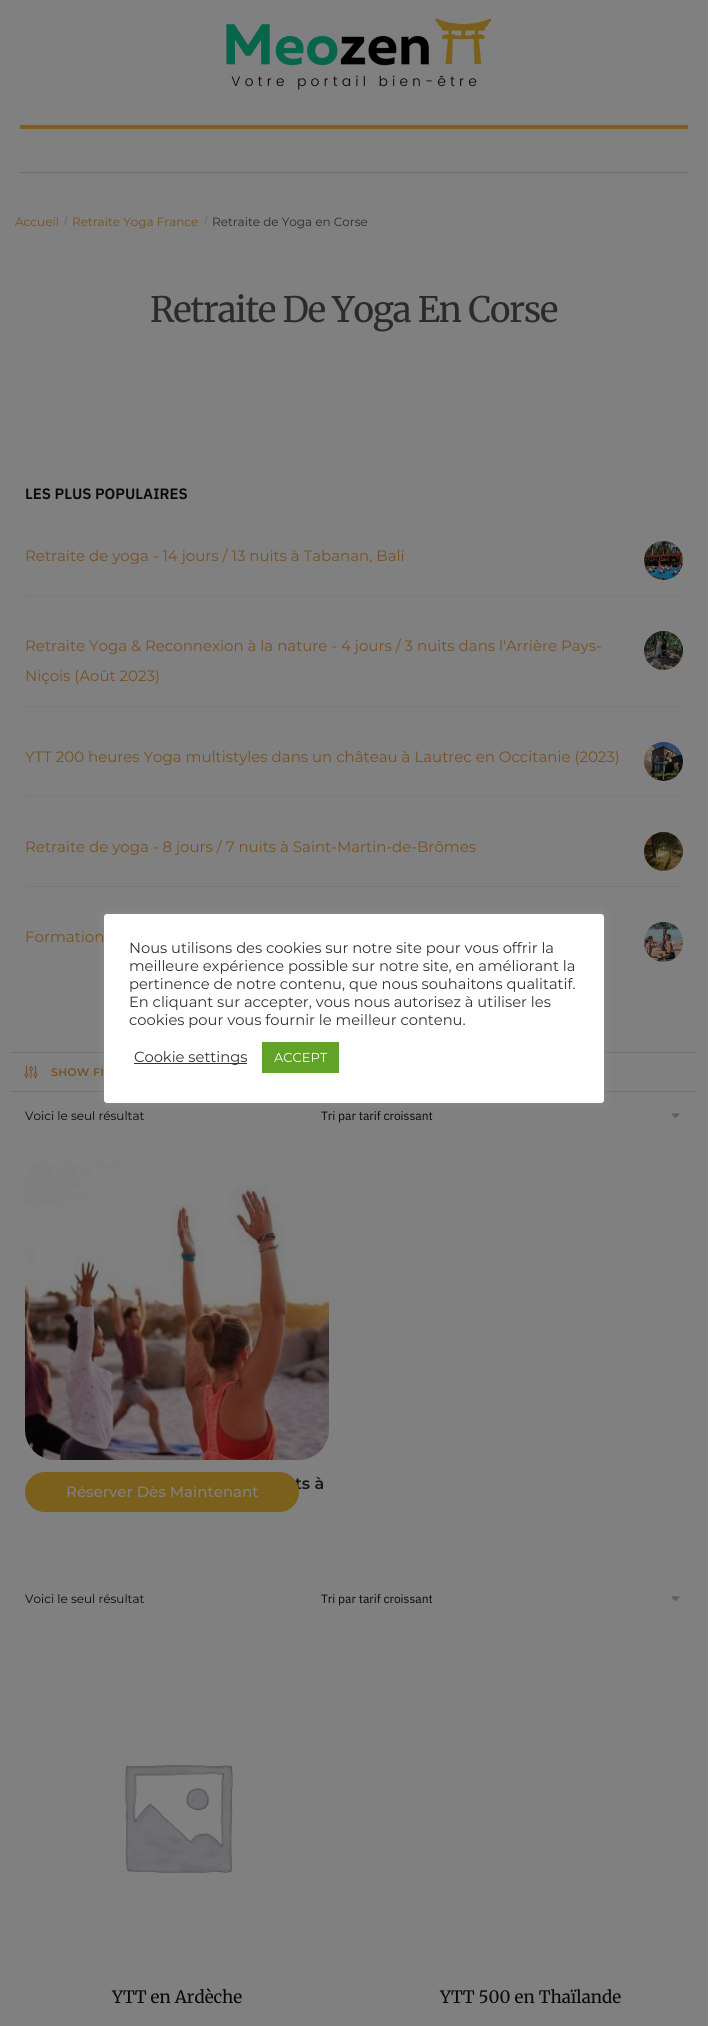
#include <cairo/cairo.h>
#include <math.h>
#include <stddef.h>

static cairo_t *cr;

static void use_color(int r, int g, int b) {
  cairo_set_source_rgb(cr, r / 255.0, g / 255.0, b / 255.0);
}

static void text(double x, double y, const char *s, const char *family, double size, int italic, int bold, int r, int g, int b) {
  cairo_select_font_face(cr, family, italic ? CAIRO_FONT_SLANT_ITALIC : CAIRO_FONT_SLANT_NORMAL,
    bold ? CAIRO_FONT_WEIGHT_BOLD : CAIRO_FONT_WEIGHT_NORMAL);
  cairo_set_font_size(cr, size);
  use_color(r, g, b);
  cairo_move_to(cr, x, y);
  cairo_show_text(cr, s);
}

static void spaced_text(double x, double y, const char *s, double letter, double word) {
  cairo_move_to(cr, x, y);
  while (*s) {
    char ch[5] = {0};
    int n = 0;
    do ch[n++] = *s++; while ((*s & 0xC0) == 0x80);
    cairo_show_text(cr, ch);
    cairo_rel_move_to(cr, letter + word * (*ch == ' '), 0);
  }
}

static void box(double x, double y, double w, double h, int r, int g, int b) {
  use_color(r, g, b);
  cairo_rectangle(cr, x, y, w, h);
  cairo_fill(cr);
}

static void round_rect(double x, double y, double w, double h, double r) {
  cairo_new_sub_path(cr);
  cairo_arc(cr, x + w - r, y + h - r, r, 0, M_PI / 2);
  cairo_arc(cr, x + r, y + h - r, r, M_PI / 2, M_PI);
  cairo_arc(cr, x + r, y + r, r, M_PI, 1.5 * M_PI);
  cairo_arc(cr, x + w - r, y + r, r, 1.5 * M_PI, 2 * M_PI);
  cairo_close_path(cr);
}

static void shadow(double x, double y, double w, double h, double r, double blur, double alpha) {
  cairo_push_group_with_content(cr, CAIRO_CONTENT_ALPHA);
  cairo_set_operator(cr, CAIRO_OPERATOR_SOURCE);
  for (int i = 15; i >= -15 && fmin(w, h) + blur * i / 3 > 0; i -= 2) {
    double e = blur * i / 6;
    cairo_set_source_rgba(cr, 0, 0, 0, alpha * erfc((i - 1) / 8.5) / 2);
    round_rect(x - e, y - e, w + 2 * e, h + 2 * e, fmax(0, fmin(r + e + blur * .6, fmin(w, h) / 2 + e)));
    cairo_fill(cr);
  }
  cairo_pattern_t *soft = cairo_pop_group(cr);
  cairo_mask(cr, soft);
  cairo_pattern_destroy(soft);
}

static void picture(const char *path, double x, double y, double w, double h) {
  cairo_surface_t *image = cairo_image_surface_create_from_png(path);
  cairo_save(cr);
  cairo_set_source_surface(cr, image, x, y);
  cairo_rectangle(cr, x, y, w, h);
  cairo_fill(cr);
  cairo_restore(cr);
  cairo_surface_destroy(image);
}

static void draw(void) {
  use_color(255, 255, 255);
  cairo_paint(cr);
  box(0, 0, 708, 2026, 128, 128, 128);
  picture("img_01.png", 226, 18, 266, 72);
  box(20, 125, 668, 4, 123, 95, 28);
  box(20, 172, 668, 1, 109, 109, 109);
  box(25, 595, 658, 1, 121, 121, 121);
  picture("img_02.png", 644, 541, 39, 39);
  box(25, 706, 658, 1, 121, 121, 121);
  picture("img_03.png", 644, 631, 39, 39);
  box(25, 796, 658, 1, 121, 121, 121);
  picture("img_04.png", 644, 742, 39, 39);
  box(25, 886, 658, 1, 121, 121, 121);
  picture("img_05.png", 644, 832, 39, 39);
  picture("img_06.png", 644, 922, 39, 40);
  box(11, 1052, 686, 1, 113, 113, 113);
  box(11, 1091, 686, 1, 113, 113, 113);
  picture("img_07.png", 24, 1065, 14, 14);
  picture("img_08.png", 671, 1113, 9, 6);
  picture("img_09.png", 25, 1164, 304, 296);
  picture("img_08.png", 671, 1596, 9, 6);
  picture("img_10.png", 125, 1765, 108, 108);
  use_color(172, 171, 171);
  shadow(104, 913, 500, 189, 3, 5, 0.3);
  use_color(255, 255, 255);
  round_rect(104, 914, 500, 189, 3);
  cairo_fill(cr);
  box(134, 1063, 113, 1, 51, 51, 51);
  box(262, 1042, 77, 31, 97, 162, 41);
  text(15, 226, "Accueil", "Montserrat", 12, 0, 0, 118, 81, 36);
  text(64, 224, "/", "Montserrat", 10, 0, 0, 94, 94, 94);
  text(72, 226, "Retraite Yoga France", "Montserrat", 12, 0, 0, 118, 81, 36);
  text(204, 224, "/", "Montserrat", 10, 0, 0, 94, 94, 94);
  text(212, 226, "Retraite de Yoga en Corse", "Montserrat", 12, 0, 0, 43, 43, 43);
  cairo_select_font_face(cr, "Merriweather", CAIRO_FONT_SLANT_NORMAL, CAIRO_FONT_WEIGHT_NORMAL);
  cairo_set_font_size(cr, 35);
  spaced_text(150, 322, "Retraite De Yoga En Corse", -1.1, 0);
  text(25, 499, "LES PLUS POPULAIRES", "IBM Plex Sans SemiBold", 15, 0, 0, 9, 9, 9);
  text(25, 561, "Retraite de yoga - 14 jours / 13 nuits à Tabanan, Bali", "Montserrat", 15, 0, 0, 118, 81, 36);
  text(25, 651, "Retraite Yoga & Reconnexion à la nature - 4 jours / 3 nuits dans l'Arrière Pays-", "Montserrat", 15, 0, 0, 118, 81, 36);
  text(25, 681, "Niçois (Août 2023)", "Montserrat", 15, 0, 0, 118, 81, 36);
  text(25, 762, "YTT 200 heures Yoga multistyles dans un château à Lautrec en Occitanie (2023)", "Montserrat", 15, 0, 0, 118, 81, 36);
  text(25, 852, "Retraite de yoga - 8 jours / 7 nuits à Saint-Martin-de-Brômes", "Montserrat", 15, 0, 0, 118, 81, 36);
  text(25, 942, "Formation", "Montserrat", 15, 0, 0, 118, 81, 36);
  cairo_select_font_face(cr, "Montserrat SemiBold", CAIRO_FONT_SLANT_NORMAL, CAIRO_FONT_WEIGHT_NORMAL);
  cairo_set_font_size(cr, 11);
  spaced_text(51, 1076, "SHOW FI", 0.25, 0);
  text(25, 1120, "Voici le seul résultat", "Montserrat", 12, 0, 0, 9, 9, 9);
  text(321, 1120, "Tri par tarif croissant", "IBM Plex Sans", 12, 0, 0, 9, 9, 9);
  text(295, 1489, "ts à", "Montserrat SemiBold", 16, 0, 0, 22, 23, 26);
  use_color(123, 95, 28);
  round_rect(25, 1472, 274, 40, 20);
  cairo_fill(cr);
  text(66, 1497, "Réserver Dès Maintenant", "Montserrat Medium", 15, 0, 0, 128, 128, 128);
  text(25, 1603, "Voici le seul résultat", "Montserrat", 12, 0, 0, 9, 9, 9);
  text(321, 1603, "Tri par tarif croissant", "IBM Plex Sans", 12, 0, 0, 9, 9, 9);
  text(112, 2003, "YTT en Ardèche", "Merriweather", 17, 0, 0, 9, 9, 9);
  text(440, 2003, "YTT 500 en Thaïlande", "Merriweather", 17, 0, 0, 9, 9, 9);
  text(129, 953, "Nous utilisons des cookies sur notre site pour vous offrir la", "Montserrat", 14.7, 0, 0, 51, 51, 51);
  text(129, 971, "meilleure expérience possible sur notre site, en améliorant la", "Montserrat", 14.7, 0, 0, 51, 51, 51);
  text(129, 989, "pertinence de notre contenu, que nous souhaitons qualitatif.", "Montserrat", 14.7, 0, 0, 51, 51, 51);
  text(129, 1007, "En cliquant sur accepter, vous nous autorisez à utiliser les", "Montserrat", 14.7, 0, 0, 51, 51, 51);
  text(129, 1025, "cookies pour vous fournir le meilleur contenu.", "Montserrat", 14.7, 0, 0, 51, 51, 51);
  text(134, 1062, "Cookie settings", "Montserrat", 14.7, 0, 0, 51, 51, 51);
  text(274, 1062, "ACCEPT", "Montserrat", 13, 0, 0, 255, 255, 255);
}

int main(void) {
  cairo_surface_t *surface = cairo_image_surface_create(CAIRO_FORMAT_RGB24, 723, 2026);
  cr = cairo_create(surface);
  cairo_font_options_t *options = cairo_font_options_create();
  cairo_font_options_set_hint_metrics(options, CAIRO_HINT_METRICS_OFF);
  cairo_font_options_set_hint_style(options, CAIRO_HINT_STYLE_NONE);
  cairo_set_font_options(cr, options);
  cairo_set_miter_limit(cr, 4);
  draw();
  cairo_surface_write_to_png(surface, "out.png");
  cairo_font_options_destroy(options);
  cairo_destroy(cr);
  cairo_surface_destroy(surface);
  return 0;
}
